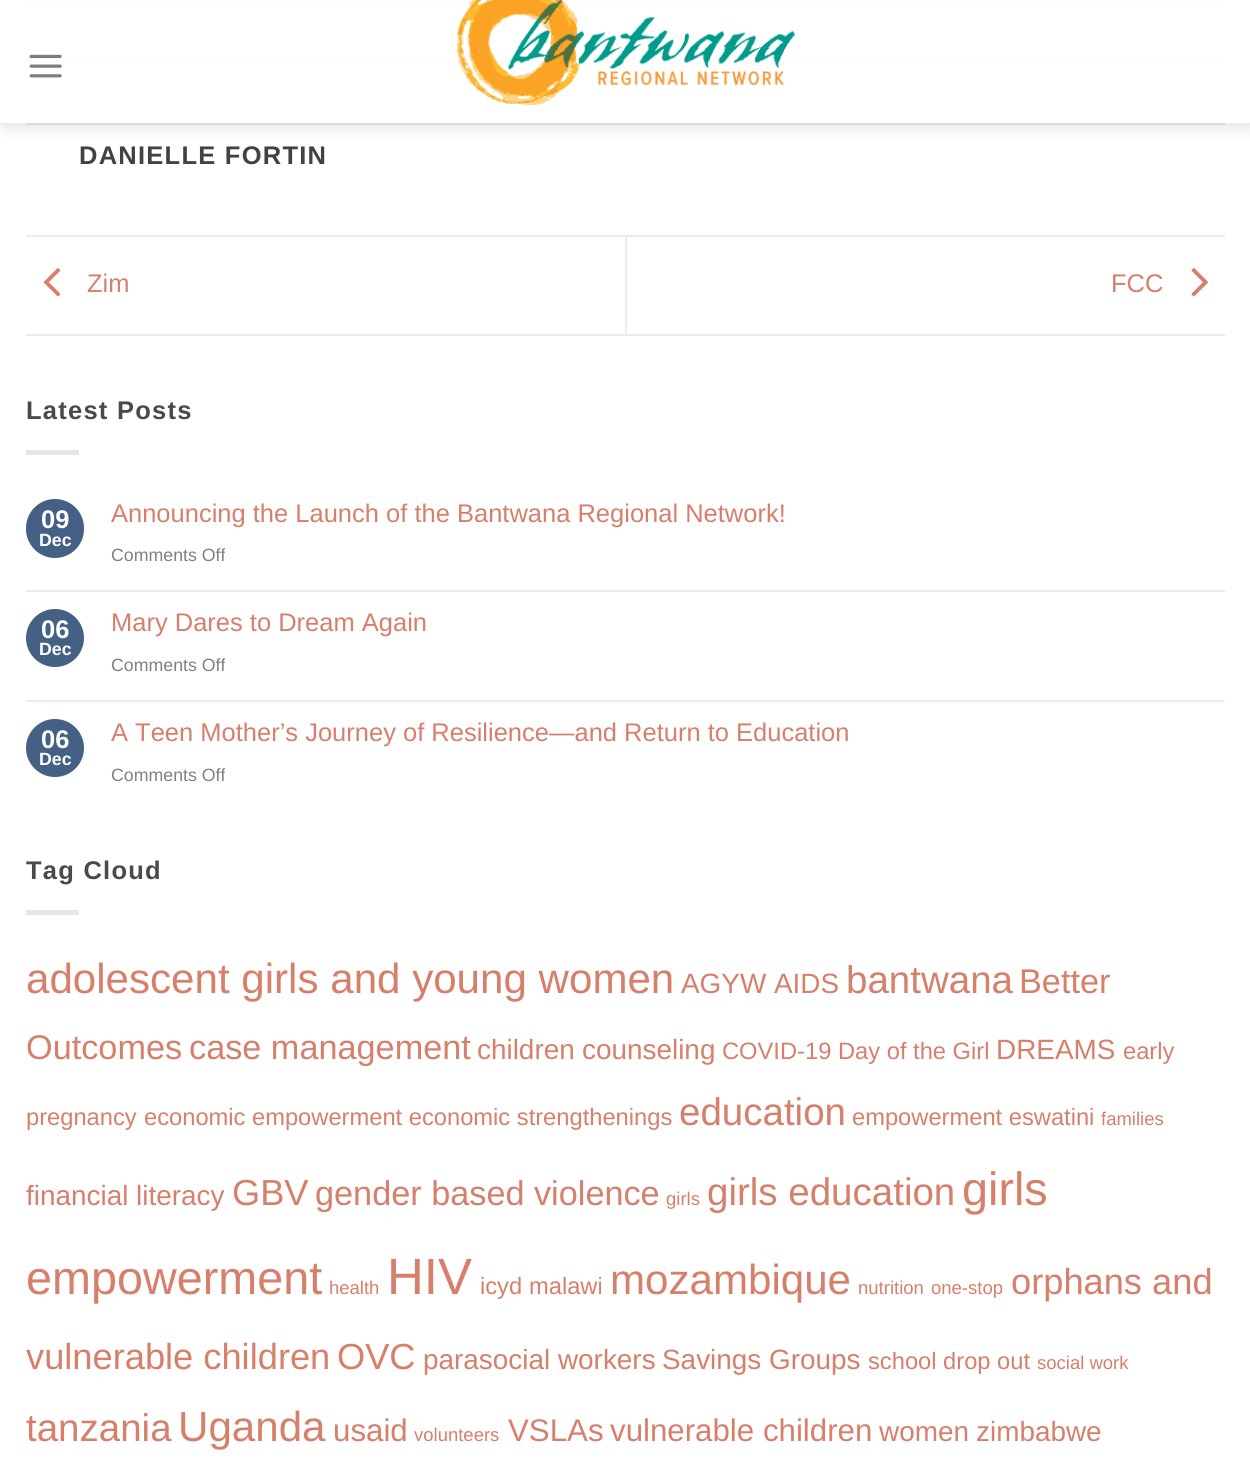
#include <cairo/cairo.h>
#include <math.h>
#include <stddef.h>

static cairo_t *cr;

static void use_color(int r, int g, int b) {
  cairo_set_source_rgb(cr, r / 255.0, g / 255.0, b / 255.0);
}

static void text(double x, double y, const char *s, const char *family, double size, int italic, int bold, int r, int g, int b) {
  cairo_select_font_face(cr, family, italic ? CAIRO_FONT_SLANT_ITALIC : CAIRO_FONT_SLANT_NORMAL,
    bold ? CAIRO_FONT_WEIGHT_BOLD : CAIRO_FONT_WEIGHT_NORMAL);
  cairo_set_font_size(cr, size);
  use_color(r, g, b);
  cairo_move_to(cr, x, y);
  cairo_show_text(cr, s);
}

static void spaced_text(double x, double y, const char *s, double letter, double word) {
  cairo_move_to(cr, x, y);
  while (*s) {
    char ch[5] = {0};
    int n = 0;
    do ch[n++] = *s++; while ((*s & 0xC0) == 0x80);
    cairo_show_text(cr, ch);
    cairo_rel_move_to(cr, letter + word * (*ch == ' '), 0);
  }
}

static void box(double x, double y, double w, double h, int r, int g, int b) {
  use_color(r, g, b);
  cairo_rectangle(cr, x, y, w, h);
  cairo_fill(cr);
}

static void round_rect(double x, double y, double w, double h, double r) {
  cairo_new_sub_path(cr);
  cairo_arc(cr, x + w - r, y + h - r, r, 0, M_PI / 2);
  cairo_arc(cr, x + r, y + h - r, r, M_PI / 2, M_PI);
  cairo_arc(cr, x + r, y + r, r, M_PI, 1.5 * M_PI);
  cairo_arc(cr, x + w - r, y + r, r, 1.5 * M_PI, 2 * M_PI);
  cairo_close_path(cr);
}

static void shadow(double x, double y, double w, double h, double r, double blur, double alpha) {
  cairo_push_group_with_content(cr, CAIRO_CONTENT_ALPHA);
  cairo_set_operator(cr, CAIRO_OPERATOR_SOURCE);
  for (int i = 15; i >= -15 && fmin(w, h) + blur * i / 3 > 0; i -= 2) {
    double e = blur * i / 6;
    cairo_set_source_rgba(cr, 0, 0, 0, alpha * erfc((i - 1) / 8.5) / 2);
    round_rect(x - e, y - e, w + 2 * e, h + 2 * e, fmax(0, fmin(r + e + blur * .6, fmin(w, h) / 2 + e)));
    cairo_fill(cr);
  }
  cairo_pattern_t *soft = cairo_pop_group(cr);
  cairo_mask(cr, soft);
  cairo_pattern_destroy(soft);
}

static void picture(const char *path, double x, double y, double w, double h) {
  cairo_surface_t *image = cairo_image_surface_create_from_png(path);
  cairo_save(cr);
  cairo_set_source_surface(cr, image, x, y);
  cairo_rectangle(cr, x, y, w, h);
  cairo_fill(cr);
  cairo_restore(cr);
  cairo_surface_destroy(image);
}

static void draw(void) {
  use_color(255, 255, 255);
  cairo_paint(cr);
  box(26, 0, 1199, 2, 236, 236, 236);
  box(26, 60, 1199, 4, 236, 236, 236);
  cairo_save(cr);
  cairo_set_fill_rule(cr, CAIRO_FILL_RULE_EVEN_ODD);
  cairo_new_path(cr);
  cairo_move_to(cr, 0, 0);
  cairo_line_to(cr, 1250, 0);
  cairo_line_to(cr, 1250, 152);
  cairo_line_to(cr, 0, 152);
  cairo_close_path(cr);
  cairo_move_to(cr, 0, 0);
  cairo_line_to(cr, 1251, 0);
  cairo_line_to(cr, 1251, 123);
  cairo_line_to(cr, 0, 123);
  cairo_close_path(cr);
  cairo_clip(cr);
  use_color(0, 0, 0);
  shadow(2, 2, 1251, 122, 0, 9, 0.15);
  cairo_restore(cr);
  cairo_set_source_rgba(cr, 1, 1, 1, 0.9);
  cairo_rectangle(cr, 0, 0, 1250, 123);
  cairo_fill(cr);
  picture("img_01.png", 29, 54, 33, 24);
  picture("img_02.png", 457, 0, 338, 105);
  box(26, 123, 1199, 2, 220, 220, 220);
  box(26, 235, 1199, 2, 236, 236, 236);
  box(26, 334, 1199, 2, 236, 236, 236);
  picture("img_03.png", 43, 268, 18, 29);
  box(625, 236, 2, 98, 236, 236, 236);
  picture("img_04.png", 1191, 268, 17, 29);
  box(26, 450, 53, 5, 230, 230, 230);
  use_color(68, 96, 132);
  round_rect(26, 499, 58, 59, 29);
  cairo_fill(cr);
  box(26, 590, 1199, 2, 236, 236, 236);
  use_color(68, 96, 132);
  cairo_arc(cr, 55, 638, 29, 0, 2 * M_PI);
  cairo_fill(cr);
  box(26, 700, 1199, 2, 236, 236, 236);
  use_color(68, 96, 132);
  cairo_arc(cr, 55, 748, 29, 0, 2 * M_PI);
  cairo_fill(cr);
  box(26, 910, 53, 5, 230, 230, 230);
  cairo_select_font_face(cr, "Liberation Sans", CAIRO_FONT_SLANT_NORMAL, CAIRO_FONT_WEIGHT_BOLD);
  cairo_set_font_size(cr, 25.5);
  use_color(66, 66, 66);
  spaced_text(79, 164, "DANIELLE FORTIN", 1.25, 0);
  text(87, 292, "Zim", "Liberation Sans", 25.5, 0, 0, 214, 127, 107);
  text(1111, 292, "FCC", "Liberation Sans", 25.5, 0, 0, 214, 127, 107);
  cairo_select_font_face(cr, "Liberation Sans", CAIRO_FONT_SLANT_NORMAL, CAIRO_FONT_WEIGHT_BOLD);
  use_color(74, 74, 74);
  spaced_text(26, 419, "Latest Posts", 1.25, 0);
  text(41, 528, "09", "Liberation Sans", 25.5, 0, 1, 255, 255, 255);
  text(39, 546, "Dec", "Liberation Sans", 17.75, 0, 1, 255, 255, 255);
  text(111, 522, "Announcing the Launch of the Bantwana Regional Network!", "Liberation Sans", 25.5, 0, 0, 214, 127, 107);
  text(111, 561, "Comments Off", "Liberation Sans", 17.75, 0, 0, 128, 128, 128);
  text(41, 638, "06", "Liberation Sans", 25.5, 0, 1, 255, 255, 255);
  text(39, 655, "Dec", "Liberation Sans", 17.75, 0, 1, 255, 255, 255);
  text(111, 631, "Mary Dares to Dream Again", "Liberation Sans", 25.5, 0, 0, 214, 127, 107);
  text(111, 671, "Comments Off", "Liberation Sans", 17.75, 0, 0, 128, 128, 128);
  text(41, 748, "06", "Liberation Sans", 25.5, 0, 1, 255, 255, 255);
  text(39, 765, "Dec", "Liberation Sans", 17.75, 0, 1, 255, 255, 255);
  text(111, 741, "A Teen Mother’s Journey of Resilience—and Return to Education", "Liberation Sans", 25.5, 0, 0, 214, 127, 107);
  text(111, 781, "Comments Off", "Liberation Sans", 17.75, 0, 0, 128, 128, 128);
  cairo_select_font_face(cr, "Liberation Sans", CAIRO_FONT_SLANT_NORMAL, CAIRO_FONT_WEIGHT_BOLD);
  cairo_set_font_size(cr, 25.5);
  use_color(74, 74, 74);
  spaced_text(26, 879, "Tag Cloud", 1.25, 0);
  text(26, 993, "adolescent girls and young women", "Liberation Sans", 42.1, 0, 0, 214, 127, 107);
  text(681, 993, "AGYW", "Liberation Sans", 27.9, 0, 0, 214, 127, 107);
  text(774, 993, "AIDS", "Liberation Sans", 27.9, 0, 0, 214, 127, 107);
  text(846, 993, "bantwana", "Liberation Sans", 38.5, 0, 0, 214, 127, 107);
  text(1019, 993, "Better", "Liberation Sans", 34.25, 0, 0, 214, 127, 107);
  text(26, 1059, "Outcomes", "Liberation Sans", 34.25, 0, 0, 214, 127, 107);
  text(189, 1059, "case management", "Liberation Sans", 34.25, 0, 0, 214, 127, 107);
  text(477, 1059, "children", "Liberation Sans", 27.9, 0, 0, 214, 127, 107);
  text(582, 1059, "counseling", "Liberation Sans", 27.9, 0, 0, 214, 127, 107);
  text(722, 1059, "COVID-19", "Liberation Sans", 23.7, 0, 0, 214, 127, 107);
  text(838, 1059, "Day of the Girl", "Liberation Sans", 23.7, 0, 0, 214, 127, 107);
  text(996, 1059, "DREAMS", "Liberation Sans", 27.9, 0, 0, 214, 127, 107);
  text(1123, 1059, "early", "Liberation Sans", 23.7, 0, 0, 214, 127, 107);
  text(26, 1125, "pregnancy", "Liberation Sans", 23.7, 0, 0, 214, 127, 107);
  text(144, 1125, "economic empowerment economic strengthenings", "Liberation Sans", 23.7, 0, 0, 214, 127, 107);
  text(679, 1125, "education", "Liberation Sans", 38.5, 0, 0, 214, 127, 107);
  text(852, 1125, "empowerment eswatini", "Liberation Sans", 23.7, 0, 0, 214, 127, 107);
  text(1101, 1125, "families", "Liberation Sans", 18.5, 0, 0, 214, 127, 107);
  text(26, 1205, "financial literacy", "Liberation Sans", 27.9, 0, 0, 214, 127, 107);
  text(232, 1205, "GBV", "Liberation Sans", 36.25, 0, 0, 214, 127, 107);
  text(315, 1205, "gender based violence", "Liberation Sans", 34.25, 0, 0, 214, 127, 107);
  text(666, 1205, "girls", "Liberation Sans", 18.5, 0, 0, 214, 127, 107);
  text(707, 1205, "girls education", "Liberation Sans", 38.5, 0, 0, 214, 127, 107);
  text(962, 1205, "girls", "Liberation Sans", 46.75, 0, 0, 214, 127, 107);
  text(26, 1294, "empowerment", "Liberation Sans", 46.75, 0, 0, 214, 127, 107);
  text(329, 1294, "health", "Liberation Sans", 18.5, 0, 0, 214, 127, 107);
  text(387, 1294, "HIV", "Liberation Sans", 51, 0, 0, 214, 127, 107);
  text(480, 1294, "icyd", "Liberation Sans", 23.7, 0, 0, 214, 127, 107);
  text(529, 1294, "malawi", "Liberation Sans", 23.7, 0, 0, 214, 127, 107);
  text(610, 1294, "mozambique", "Liberation Sans", 42.1, 0, 0, 214, 127, 107);
  text(858, 1294, "nutrition", "Liberation Sans", 18.5, 0, 0, 214, 127, 107);
  text(931, 1294, "one-stop", "Liberation Sans", 18.5, 0, 0, 214, 127, 107);
  text(1011, 1294, "orphans and", "Liberation Sans", 36.25, 0, 0, 214, 127, 107);
  text(26, 1369, "vulnerable children", "Liberation Sans", 36.25, 0, 0, 214, 127, 107);
  text(337, 1369, "OVC", "Liberation Sans", 36.25, 0, 0, 214, 127, 107);
  text(423, 1369, "parasocial workers", "Liberation Sans", 27.9, 0, 0, 214, 127, 107);
  text(662, 1369, "Savings Groups", "Liberation Sans", 27.9, 0, 0, 214, 127, 107);
  text(868, 1369, "school drop out", "Liberation Sans", 23.7, 0, 0, 214, 127, 107);
  text(1037, 1369, "social work", "Liberation Sans", 18.5, 0, 0, 214, 127, 107);
  text(26, 1441, "tanzania", "Liberation Sans", 38.5, 0, 0, 214, 127, 107);
  text(178, 1441, "Uganda", "Liberation Sans", 42.1, 0, 0, 214, 127, 107);
  text(333, 1441, "usaid", "Liberation Sans", 31.25, 0, 0, 214, 127, 107);
  text(414, 1441, "volunteers", "Liberation Sans", 18.5, 0, 0, 214, 127, 107);
  text(508, 1441, "VSLAs", "Liberation Sans", 31.25, 0, 0, 214, 127, 107);
  text(610, 1441, "vulnerable children", "Liberation Sans", 31.25, 0, 0, 214, 127, 107);
  text(879, 1441, "women", "Liberation Sans", 27.9, 0, 0, 214, 127, 107);
  text(976, 1441, "zimbabwe", "Liberation Sans", 27.9, 0, 0, 214, 127, 107);
}

int main(void) {
  cairo_surface_t *surface = cairo_image_surface_create(CAIRO_FORMAT_RGB24, 1250, 1470);
  cr = cairo_create(surface);
  cairo_font_options_t *options = cairo_font_options_create();
  cairo_font_options_set_hint_metrics(options, CAIRO_HINT_METRICS_OFF);
  cairo_font_options_set_hint_style(options, CAIRO_HINT_STYLE_NONE);
  cairo_set_font_options(cr, options);
  cairo_set_miter_limit(cr, 4);
  draw();
  cairo_surface_write_to_png(surface, "out.png");
  cairo_font_options_destroy(options);
  cairo_destroy(cr);
  cairo_surface_destroy(surface);
  return 0;
}
